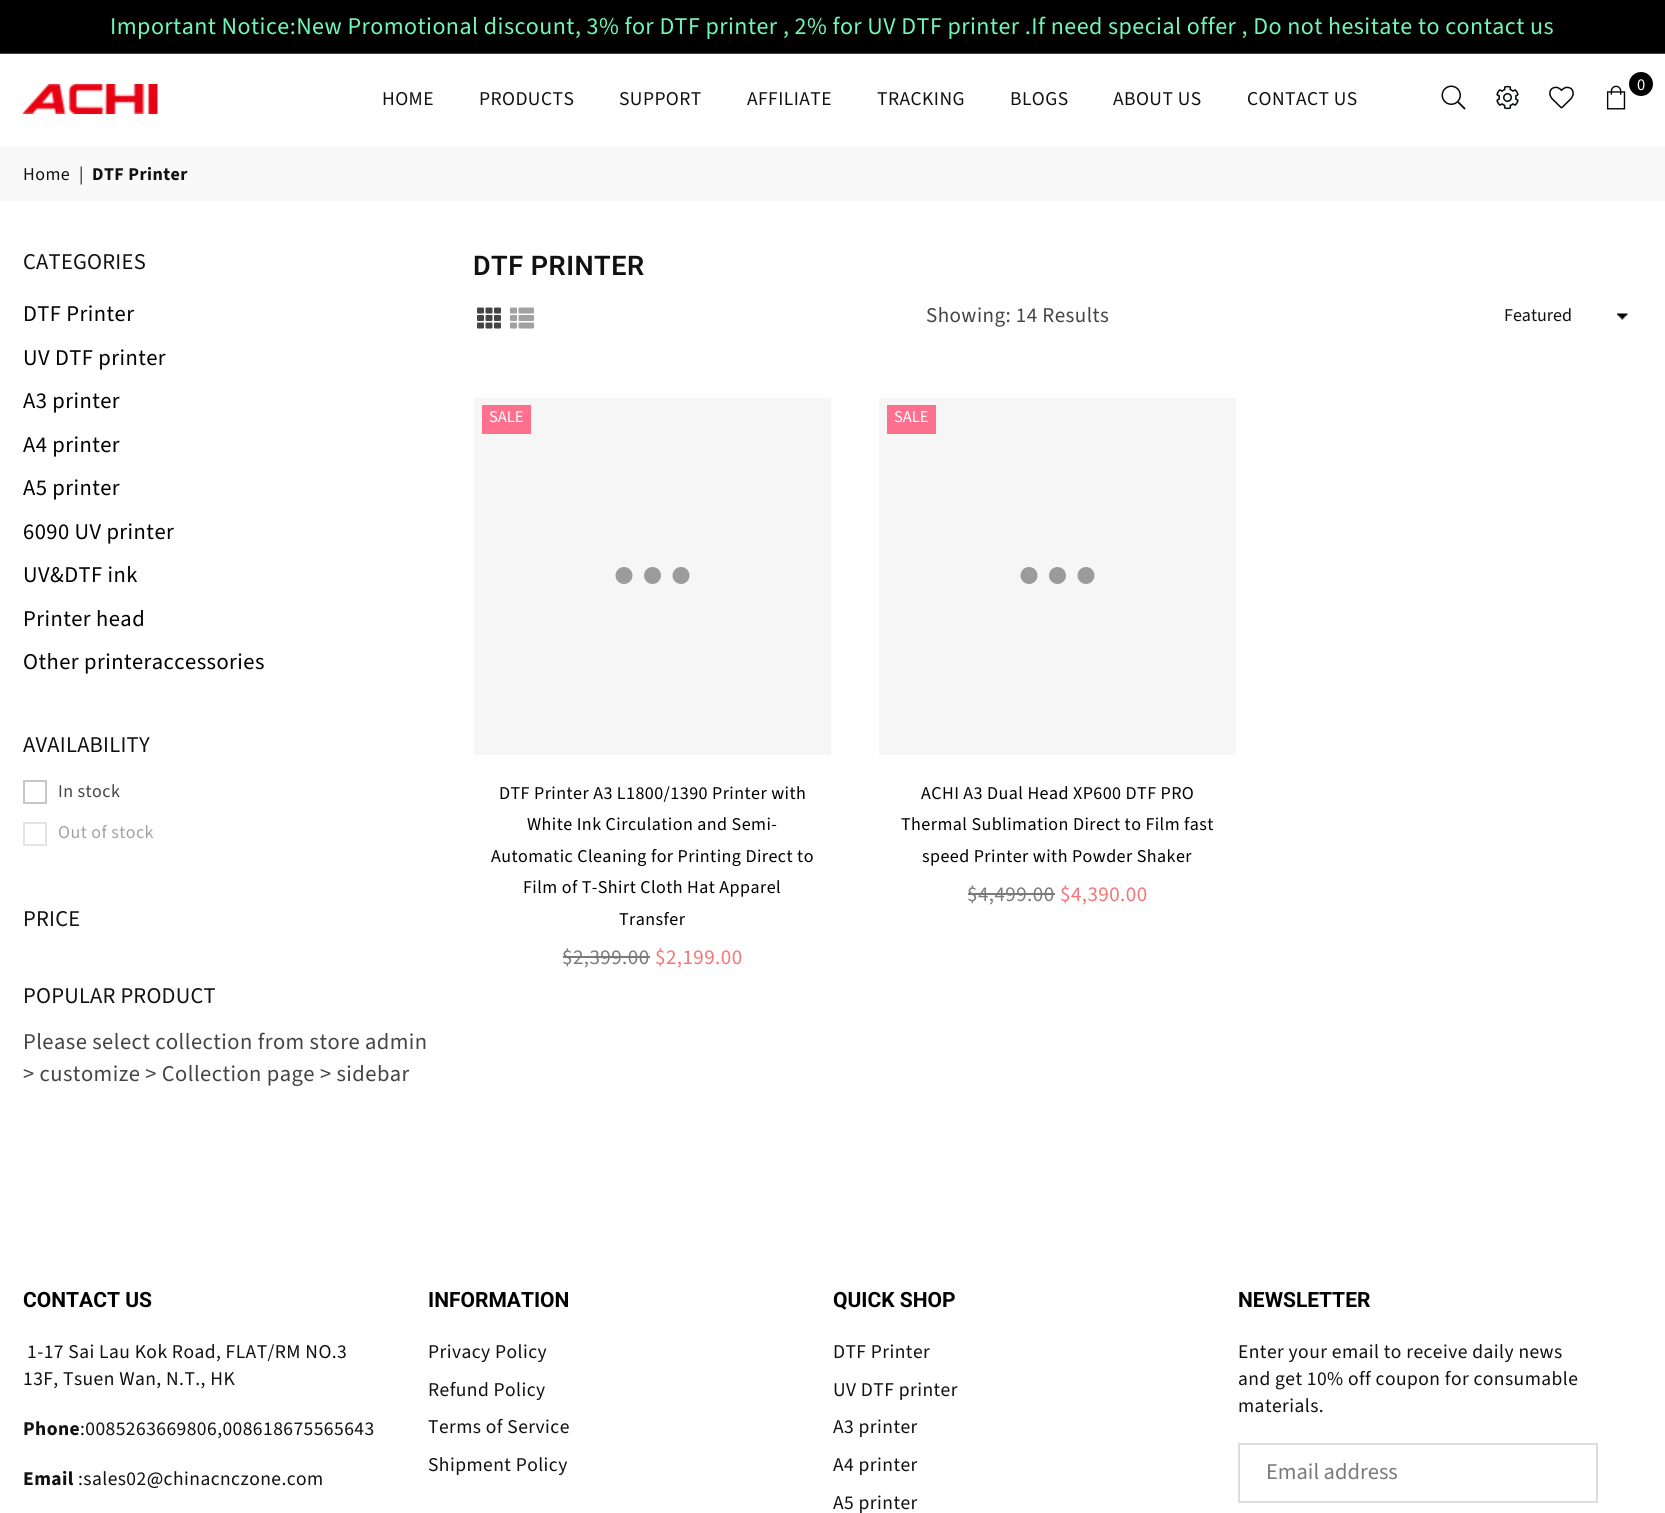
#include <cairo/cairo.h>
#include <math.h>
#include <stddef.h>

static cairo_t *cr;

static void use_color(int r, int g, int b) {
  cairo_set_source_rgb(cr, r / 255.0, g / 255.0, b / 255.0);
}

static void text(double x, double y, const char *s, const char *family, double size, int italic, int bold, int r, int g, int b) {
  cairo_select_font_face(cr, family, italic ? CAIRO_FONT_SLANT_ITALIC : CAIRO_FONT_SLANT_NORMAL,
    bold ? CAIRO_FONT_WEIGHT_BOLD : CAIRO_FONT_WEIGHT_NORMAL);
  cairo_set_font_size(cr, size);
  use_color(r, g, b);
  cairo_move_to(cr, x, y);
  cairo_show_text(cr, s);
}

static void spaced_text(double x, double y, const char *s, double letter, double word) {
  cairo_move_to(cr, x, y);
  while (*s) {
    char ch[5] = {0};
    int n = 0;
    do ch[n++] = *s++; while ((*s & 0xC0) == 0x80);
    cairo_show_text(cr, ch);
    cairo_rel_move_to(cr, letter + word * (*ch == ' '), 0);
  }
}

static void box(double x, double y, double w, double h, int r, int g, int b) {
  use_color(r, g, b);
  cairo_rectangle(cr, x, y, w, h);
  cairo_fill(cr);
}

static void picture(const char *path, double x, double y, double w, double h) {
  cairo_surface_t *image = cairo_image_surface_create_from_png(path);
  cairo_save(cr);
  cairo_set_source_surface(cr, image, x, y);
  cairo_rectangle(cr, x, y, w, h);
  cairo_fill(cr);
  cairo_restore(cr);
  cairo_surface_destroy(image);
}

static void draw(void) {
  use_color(255, 255, 255);
  cairo_paint(cr);
  box(0, 0, 1665, 53, 0, 0, 0);
  box(0, 53, 1665, 1, 68, 68, 68);
  picture("img_01.png", 22, 84, 136, 30);
  picture("img_02.png", 1441, 85, 25, 25);
  picture("img_03.png", 1496, 85, 23, 25);
  picture("img_04.png", 1549, 86, 25, 23);
  picture("img_05.png", 1606, 85, 20, 25);
  use_color(0, 0, 0);
  cairo_arc(cr, 1641, 84, 12, 0, 2 * M_PI);
  cairo_fill(cr);
  box(0, 146, 1665, 55, 249, 249, 249);
  cairo_rectangle(cr, 24, 781, 22, 22);
  use_color(199, 199, 199);
  cairo_stroke(cr);
  cairo_rectangle(cr, 24, 823, 22, 22);
  use_color(227, 227, 227);
  cairo_stroke(cr);
  picture("img_06.png", 477, 307, 24, 22);
  picture("img_07.png", 510, 307, 24, 22);
  picture("img_08.png", 1617, 313, 11, 7);
  box(474, 398, 357, 357, 246, 246, 246);
  use_color(155, 155, 155);
  cairo_arc(cr, 624, 575.5, 8.5, 0, 2 * M_PI);
  cairo_fill(cr);
  cairo_arc(cr, 652.5, 575.5, 8.5, 0, 2 * M_PI);
  cairo_fill(cr);
  cairo_arc(cr, 681, 575.5, 8.5, 0, 2 * M_PI);
  cairo_fill(cr);
  box(482, 405, 49, 29, 255, 112, 142);
  box(563, 956, 87, 2, 122, 122, 122);
  box(879, 398, 357, 357, 246, 246, 246);
  use_color(155, 155, 155);
  cairo_arc(cr, 1029, 575.5, 8.5, 0, 2 * M_PI);
  cairo_fill(cr);
  cairo_arc(cr, 1057.5, 575.5, 8.5, 0, 2 * M_PI);
  cairo_fill(cr);
  cairo_arc(cr, 1086, 575.5, 8.5, 0, 2 * M_PI);
  cairo_fill(cr);
  box(887, 405, 49, 29, 255, 112, 142);
  box(968, 893, 87, 2, 122, 122, 122);
  cairo_rectangle(cr, 1239, 1444, 358, 58);
  use_color(221, 221, 221);
  cairo_stroke(cr);
  cairo_select_font_face(cr, "Source Sans Pro", CAIRO_FONT_SLANT_NORMAL, CAIRO_FONT_WEIGHT_NORMAL);
  cairo_set_font_size(cr, 24);
  use_color(114, 246, 181);
  spaced_text(110, 34, "Important Notice:New Promotional discount, 3% for DTF printer , 2% for UV DTF printer .If need special offer , Do not hesitate to contact us", 0.45, 0);
  cairo_set_font_size(cr, 19.5);
  use_color(17, 17, 17);
  spaced_text(382, 105, "HOME", 0.45, 0);
  spaced_text(479, 105, "PRODUCTS", 0.45, 0);
  spaced_text(619, 105, "SUPPORT", 0.45, 0);
  spaced_text(747, 105, "AFFILIATE", 0.45, 0);
  spaced_text(877, 105, "TRACKING", 0.45, 0);
  spaced_text(1010, 105, "BLOGS", 0.45, 0);
  spaced_text(1113, 105, "ABOUT US", 0.45, 0);
  spaced_text(1247, 105, "CONTACT US", 0.45, 0);
  cairo_set_font_size(cr, 16.5);
  use_color(255, 255, 255);
  spaced_text(1637, 90, "0", 0.45, 0);
  cairo_set_font_size(cr, 18);
  use_color(17, 17, 17);
  spaced_text(23, 180, "Home", 0.45, 0);
  spaced_text(79, 180, "|", 0.45, 0);
  cairo_select_font_face(cr, "Source Sans Pro", CAIRO_FONT_SLANT_NORMAL, CAIRO_FONT_WEIGHT_BOLD);
  spaced_text(92, 180, "DTF Printer", 0.45, 0);
  cairo_select_font_face(cr, "Source Sans Pro", CAIRO_FONT_SLANT_NORMAL, CAIRO_FONT_WEIGHT_NORMAL);
  cairo_set_font_size(cr, 22.5);
  spaced_text(23, 269, "CATEGORIES", 0.25, 0);
  use_color(0, 0, 0);
  spaced_text(23, 321, "DTF Printer", 0.45, 0);
  spaced_text(23, 365, "UV DTF printer", 0.45, 0);
  spaced_text(23, 408, "A3 printer", 0.45, 0);
  spaced_text(23, 452, "A4 printer", 0.45, 0);
  spaced_text(23, 495, "A5 printer", 0.45, 0);
  spaced_text(23, 539, "6090 UV printer", 0.45, 0);
  spaced_text(23, 582, "UV&DTF ink", 0.45, 0);
  spaced_text(23, 626, "Printer head", 0.45, 0);
  spaced_text(23, 669, "Other printeraccessories", 0.45, 0);
  use_color(17, 17, 17);
  spaced_text(23, 752, "AVAILABILITY", 0.25, 0);
  cairo_set_font_size(cr, 18);
  use_color(68, 68, 68);
  spaced_text(58, 797, "In stock", 0.45, 0);
  use_color(162, 162, 162);
  spaced_text(58, 838, "Out of stock", 0.45, 0);
  cairo_set_font_size(cr, 22.5);
  use_color(17, 17, 17);
  spaced_text(23, 926, "PRICE", 0.25, 0);
  spaced_text(23, 1003, "POPULAR PRODUCT", 0.25, 0);
  use_color(68, 68, 68);
  spaced_text(23, 1049, "Please select collection from store admin", 0.45, 0);
  spaced_text(23, 1081, "> customize > Collection page > sidebar", 0.45, 0);
  cairo_select_font_face(cr, "Roboto SemiBold", CAIRO_FONT_SLANT_NORMAL, CAIRO_FONT_WEIGHT_NORMAL);
  cairo_set_font_size(cr, 27);
  use_color(17, 17, 17);
  spaced_text(473, 275, "DTF PRINTER", 0.5, 0);
  cairo_select_font_face(cr, "Source Sans Pro", CAIRO_FONT_SLANT_NORMAL, CAIRO_FONT_WEIGHT_NORMAL);
  cairo_set_font_size(cr, 21);
  use_color(68, 68, 68);
  spaced_text(926, 322, "Showing: 14 Results", 0.45, 0);
  text(1504, 321, "Featured", "Source Sans Pro", 18, 0, 0, 17, 17, 17);
  text(489, 422, "SALE", "Source Sans Pro", 16.5, 0, 0, 255, 255, 255);
  cairo_set_font_size(cr, 18);
  use_color(0, 0, 0);
  spaced_text(499, 799, "DTF Printer A3 L1800/1390 Printer with", 0.45, 0);
  spaced_text(527, 830, "White Ink Circulation and Semi-", 0.45, 0);
  spaced_text(491, 862, "Automatic Cleaning for Printing Direct to", 0.45, 0);
  spaced_text(523, 893, "Film of T-Shirt Cloth Hat Apparel", 0.45, 0);
  spaced_text(619, 925, "Transfer", 0.45, 0);
  cairo_set_font_size(cr, 21);
  use_color(122, 122, 122);
  spaced_text(562, 964, "$2,399.00", 0.45, 0);
  use_color(247, 117, 117);
  spaced_text(655, 964, "$2,199.00", 0.45, 0);
  text(894, 422, "SALE", "Source Sans Pro", 16.5, 0, 0, 255, 255, 255);
  cairo_set_font_size(cr, 18);
  use_color(0, 0, 0);
  spaced_text(921, 799, "ACHI A3 Dual Head XP600 DTF PRO", 0.45, 0);
  spaced_text(901, 830, "Thermal Sublimation Direct to Film fast", 0.45, 0);
  spaced_text(922, 862, "speed Printer with Powder Shaker", 0.45, 0);
  cairo_set_font_size(cr, 21);
  use_color(122, 122, 122);
  spaced_text(967, 901, "$4,499.00", 0.45, 0);
  use_color(247, 117, 117);
  spaced_text(1060, 901, "$4,390.00", 0.45, 0);
  text(23, 1307, "CONTACT US", "Roboto", 21, 0, 1, 0, 0, 0);
  cairo_select_font_face(cr, "Source Sans Pro", CAIRO_FONT_SLANT_NORMAL, CAIRO_FONT_WEIGHT_NORMAL);
  cairo_set_font_size(cr, 19.5);
  use_color(17, 17, 17);
  spaced_text(27, 1358, "1-17 Sai Lau Kok Road, FLAT/RM NO.3", 0.45, 0);
  spaced_text(23, 1385, "13F, Tsuen Wan, N.T., HK", 0.45, 0);
  cairo_select_font_face(cr, "Source Sans Pro", CAIRO_FONT_SLANT_NORMAL, CAIRO_FONT_WEIGHT_BOLD);
  spaced_text(23, 1435, "Phone", 0.45, 0);
  cairo_select_font_face(cr, "Source Sans Pro", CAIRO_FONT_SLANT_NORMAL, CAIRO_FONT_WEIGHT_NORMAL);
  spaced_text(80, 1435, ":0085263669806,008618675565643", 0.45, 0);
  cairo_select_font_face(cr, "Source Sans Pro", CAIRO_FONT_SLANT_NORMAL, CAIRO_FONT_WEIGHT_BOLD);
  spaced_text(23, 1485, "Email", 0.45, 0);
  cairo_select_font_face(cr, "Source Sans Pro", CAIRO_FONT_SLANT_NORMAL, CAIRO_FONT_WEIGHT_NORMAL);
  spaced_text(78, 1485, ":sales02@chinacnczone.com", 0.45, 0);
  text(428, 1307, "INFORMATION", "Roboto", 21, 0, 1, 0, 0, 0);
  cairo_select_font_face(cr, "Source Sans Pro", CAIRO_FONT_SLANT_NORMAL, CAIRO_FONT_WEIGHT_NORMAL);
  cairo_set_font_size(cr, 19.5);
  use_color(17, 17, 17);
  spaced_text(428, 1358, "Privacy Policy", 0.45, 0);
  spaced_text(428, 1396, "Refund Policy", 0.45, 0);
  spaced_text(428, 1433, "Terms of Service", 0.45, 0);
  spaced_text(428, 1471, "Shipment Policy", 0.45, 0);
  text(833, 1307, "QUICK SHOP", "Roboto", 21, 0, 1, 0, 0, 0);
  cairo_select_font_face(cr, "Source Sans Pro", CAIRO_FONT_SLANT_NORMAL, CAIRO_FONT_WEIGHT_NORMAL);
  cairo_set_font_size(cr, 19.5);
  use_color(17, 17, 17);
  spaced_text(833, 1358, "DTF Printer", 0.45, 0);
  spaced_text(833, 1396, "UV DTF printer", 0.45, 0);
  spaced_text(833, 1433, "A3 printer", 0.45, 0);
  spaced_text(833, 1471, "A4 printer", 0.45, 0);
  spaced_text(833, 1509, "A5 printer", 0.45, 0);
  text(1238, 1307, "NEWSLETTER", "Roboto", 21, 0, 1, 0, 0, 0);
  cairo_select_font_face(cr, "Source Sans Pro", CAIRO_FONT_SLANT_NORMAL, CAIRO_FONT_WEIGHT_NORMAL);
  cairo_set_font_size(cr, 19.5);
  use_color(17, 17, 17);
  spaced_text(1238, 1358, "Enter your email to receive daily news", 0.45, 0);
  spaced_text(1238, 1385, "and get 10% off coupon for consumable", 0.45, 0);
  spaced_text(1238, 1412, "materials.", 0.45, 0);
  text(1266, 1479, "Email address", "Source Sans Pro", 22.5, 0, 0, 122, 122, 122);
}

int main(void) {
  cairo_surface_t *surface = cairo_image_surface_create(CAIRO_FORMAT_RGB24, 1665, 1513);
  cr = cairo_create(surface);
  cairo_font_options_t *options = cairo_font_options_create();
  cairo_font_options_set_hint_metrics(options, CAIRO_HINT_METRICS_OFF);
  cairo_font_options_set_hint_style(options, CAIRO_HINT_STYLE_NONE);
  cairo_set_font_options(cr, options);
  cairo_set_miter_limit(cr, 4);
  draw();
  cairo_surface_write_to_png(surface, "out.png");
  cairo_font_options_destroy(options);
  cairo_destroy(cr);
  cairo_surface_destroy(surface);
  return 0;
}
